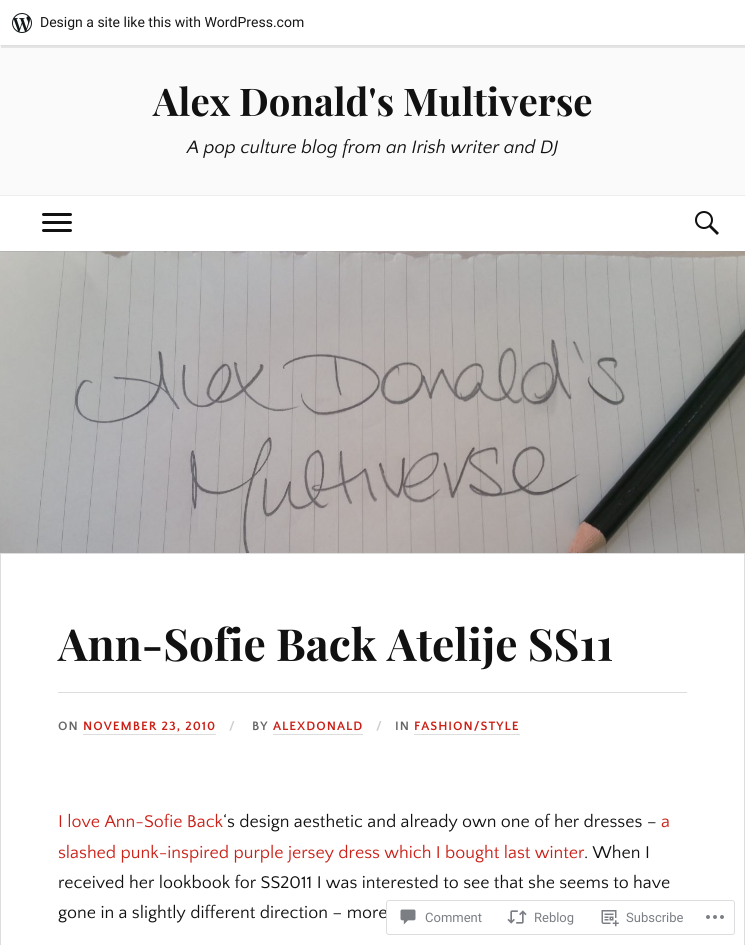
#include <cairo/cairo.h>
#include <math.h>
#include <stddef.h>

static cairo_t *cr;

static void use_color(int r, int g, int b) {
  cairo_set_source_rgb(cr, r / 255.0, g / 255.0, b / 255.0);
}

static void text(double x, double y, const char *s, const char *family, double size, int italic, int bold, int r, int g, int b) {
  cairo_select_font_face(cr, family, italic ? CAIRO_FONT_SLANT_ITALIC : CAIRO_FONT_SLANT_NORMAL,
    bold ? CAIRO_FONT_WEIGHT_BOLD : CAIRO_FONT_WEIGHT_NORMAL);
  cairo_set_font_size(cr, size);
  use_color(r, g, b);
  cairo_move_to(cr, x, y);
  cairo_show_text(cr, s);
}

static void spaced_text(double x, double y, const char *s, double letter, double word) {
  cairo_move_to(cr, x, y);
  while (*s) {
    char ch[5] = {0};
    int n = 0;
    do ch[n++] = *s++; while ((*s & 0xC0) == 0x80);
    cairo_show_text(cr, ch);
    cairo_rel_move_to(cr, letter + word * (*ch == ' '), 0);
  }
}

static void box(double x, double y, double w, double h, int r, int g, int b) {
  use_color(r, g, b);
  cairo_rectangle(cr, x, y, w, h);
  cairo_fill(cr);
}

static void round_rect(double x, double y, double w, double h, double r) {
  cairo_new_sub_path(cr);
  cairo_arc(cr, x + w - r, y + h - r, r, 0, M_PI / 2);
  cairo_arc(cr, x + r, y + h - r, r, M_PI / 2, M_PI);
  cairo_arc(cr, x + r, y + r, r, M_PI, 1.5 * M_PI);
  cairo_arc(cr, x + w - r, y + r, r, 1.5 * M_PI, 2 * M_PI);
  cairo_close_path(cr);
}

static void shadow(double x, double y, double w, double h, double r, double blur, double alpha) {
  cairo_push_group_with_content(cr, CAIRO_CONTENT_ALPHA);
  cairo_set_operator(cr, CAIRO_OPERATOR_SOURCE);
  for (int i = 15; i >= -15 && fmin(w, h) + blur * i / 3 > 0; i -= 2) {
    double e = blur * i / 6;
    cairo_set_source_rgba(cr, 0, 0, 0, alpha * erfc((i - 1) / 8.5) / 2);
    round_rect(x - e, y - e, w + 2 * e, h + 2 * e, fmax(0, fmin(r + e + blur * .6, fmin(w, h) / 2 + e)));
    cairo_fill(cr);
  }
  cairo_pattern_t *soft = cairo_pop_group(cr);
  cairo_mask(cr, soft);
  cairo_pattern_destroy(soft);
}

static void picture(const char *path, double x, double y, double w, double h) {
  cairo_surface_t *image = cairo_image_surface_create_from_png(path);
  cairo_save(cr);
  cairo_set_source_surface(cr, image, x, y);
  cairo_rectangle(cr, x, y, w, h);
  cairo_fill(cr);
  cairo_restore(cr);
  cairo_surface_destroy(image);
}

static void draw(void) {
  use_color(250, 250, 250);
  cairo_paint(cr);
  use_color(0, 0, 0);
  shadow(0, 1, 745, 45, 0, 1, 0.05);
  cairo_set_source_rgba(cr, 0, 0, 0, 0.08);
  cairo_new_path(cr);
  cairo_move_to(cr, 1, 45);
  cairo_line_to(cr, 1, 48);
  cairo_line_to(cr, 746, 48);
  cairo_line_to(cr, 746, 3);
  cairo_line_to(cr, 745, 3);
  cairo_line_to(cr, 745, 45);
  cairo_close_path(cr);
  cairo_fill(cr);
  box(0, 0, 745, 45, 255, 255, 255);
  picture("img_01.png", 12, 13, 20, 20);
  box(0, 196, 745, 55, 255, 255, 255);
  box(0, 195, 745, 1, 238, 238, 238);
  use_color(17, 17, 17);
  round_rect(42, 213, 30, 3, 1.5);
  cairo_fill(cr);
  round_rect(42, 221, 30, 3, 1.5);
  cairo_fill(cr);
  round_rect(42, 229, 30, 3, 1.5);
  cairo_fill(cr);
  picture("img_02.png", 695, 211, 24, 24);
  picture("img_03.png", 0, 251, 745, 302);
  box(1, 554, 743, 391, 255, 255, 255);
  box(0, 553, 745, 1, 221, 221, 221);
  box(744, 553, 1, 392, 221, 221, 221);
  box(0, 553, 1, 392, 221, 221, 221);
  box(58, 692, 629, 1, 221, 221, 221);
  box(83, 734, 133, 1, 221, 221, 221);
  box(273, 734, 90, 1, 221, 221, 221);
  box(414, 734, 106, 1, 221, 221, 221);
  text(40, 27, "Design a site like this with WordPress.com", "Roboto", 14, 0, 0, 23, 23, 23);
  text(153, 116, "Alex Donald's Multiverse", "Playfair Display", 38.25, 0, 1, 17, 17, 17);
  text(187, 153, "A pop culture blog from an Irish writer and DJ", "Quattrocento Sans", 18.75, 1, 0, 17, 17, 17);
  text(58, 661, "Ann-Sofie Back Atelije SS11", "Playfair Display", 44.25, 0, 1, 17, 17, 17);
  cairo_select_font_face(cr, "Quattrocento Sans", CAIRO_FONT_SLANT_NORMAL, CAIRO_FONT_WEIGHT_BOLD);
  cairo_set_font_size(cr, 12.75);
  use_color(102, 102, 102);
  spaced_text(58, 730, "ON", 1, 0);
  use_color(202, 32, 23);
  spaced_text(83, 730, "NOVEMBER 23, 2010", 1, 0);
  use_color(204, 204, 204);
  spaced_text(229, 730, "/", 1, 0);
  use_color(102, 102, 102);
  spaced_text(252, 730, "BY", 1, 0);
  use_color(202, 32, 23);
  spaced_text(273, 730, "ALEXDONALD", 1, 0);
  use_color(204, 204, 204);
  spaced_text(376, 730, "/", 1, 0);
  use_color(102, 102, 102);
  spaced_text(395, 730, "IN", 1, 0);
  use_color(202, 32, 23);
  spaced_text(414, 730, "FASHION/STYLE", 1, 0);
  text(58, 827, "I love Ann-Sofie Back", "Quattrocento Sans", 17.85, 0, 0, 202, 32, 23);
  text(223, 827, "‘s design aesthetic and already own one of her dresses –", "Quattrocento Sans", 17.85, 0, 0, 17, 17, 17);
  text(661, 827, "a", "Quattrocento Sans", 17.85, 0, 0, 202, 32, 23);
  text(58, 858, "slashed punk-inspired purple jersey dress which I bought last winter", "Quattrocento Sans", 17.85, 0, 0, 202, 32, 23);
  text(584, 858, ". When I", "Quattrocento Sans", 17.85, 0, 0, 17, 17, 17);
  text(58, 888, "received her lookbook for SS2011 I was interested to see that she seems to have", "Quattrocento Sans", 17.85, 0, 0, 17, 17, 17);
  text(58, 918, "gone in a slightly different direction – more", "Quattrocento Sans", 17.85, 0, 0, 17, 17, 17);
  cairo_set_source_rgba(cr, 1, 1, 1, 0.98);
  round_rect(386, 900, 349, 35, 3);
  cairo_fill(cr);
  round_rect(386.5, 900.5, 348, 34, 2.5);
  cairo_set_source_rgba(cr, 0.863, 0.863, 0.871, 0.98);
  cairo_set_line_width(cr, 1);
  cairo_stroke(cr);
  picture("img_04.png", 400, 909, 16, 16);
  text(425, 922, "Comment", "Roboto", 13, 0, 0, 123, 127, 132);
  picture("img_05.png", 507, 910, 20, 14);
  text(534, 922, "Reblog", "Roboto", 13, 0, 0, 123, 127, 132);
  picture("img_06.png", 601, 910, 18, 17);
  text(626, 922, "Subscribe", "Roboto", 13, 0, 0, 123, 127, 132);
  picture("img_07.png", 706, 915, 18, 4);
}

int main(void) {
  cairo_surface_t *surface = cairo_image_surface_create(CAIRO_FORMAT_RGB24, 745, 945);
  cr = cairo_create(surface);
  cairo_font_options_t *options = cairo_font_options_create();
  cairo_font_options_set_hint_metrics(options, CAIRO_HINT_METRICS_OFF);
  cairo_font_options_set_hint_style(options, CAIRO_HINT_STYLE_NONE);
  cairo_set_font_options(cr, options);
  cairo_set_miter_limit(cr, 4);
  draw();
  cairo_surface_write_to_png(surface, "out.png");
  cairo_font_options_destroy(options);
  cairo_destroy(cr);
  cairo_surface_destroy(surface);
  return 0;
}
